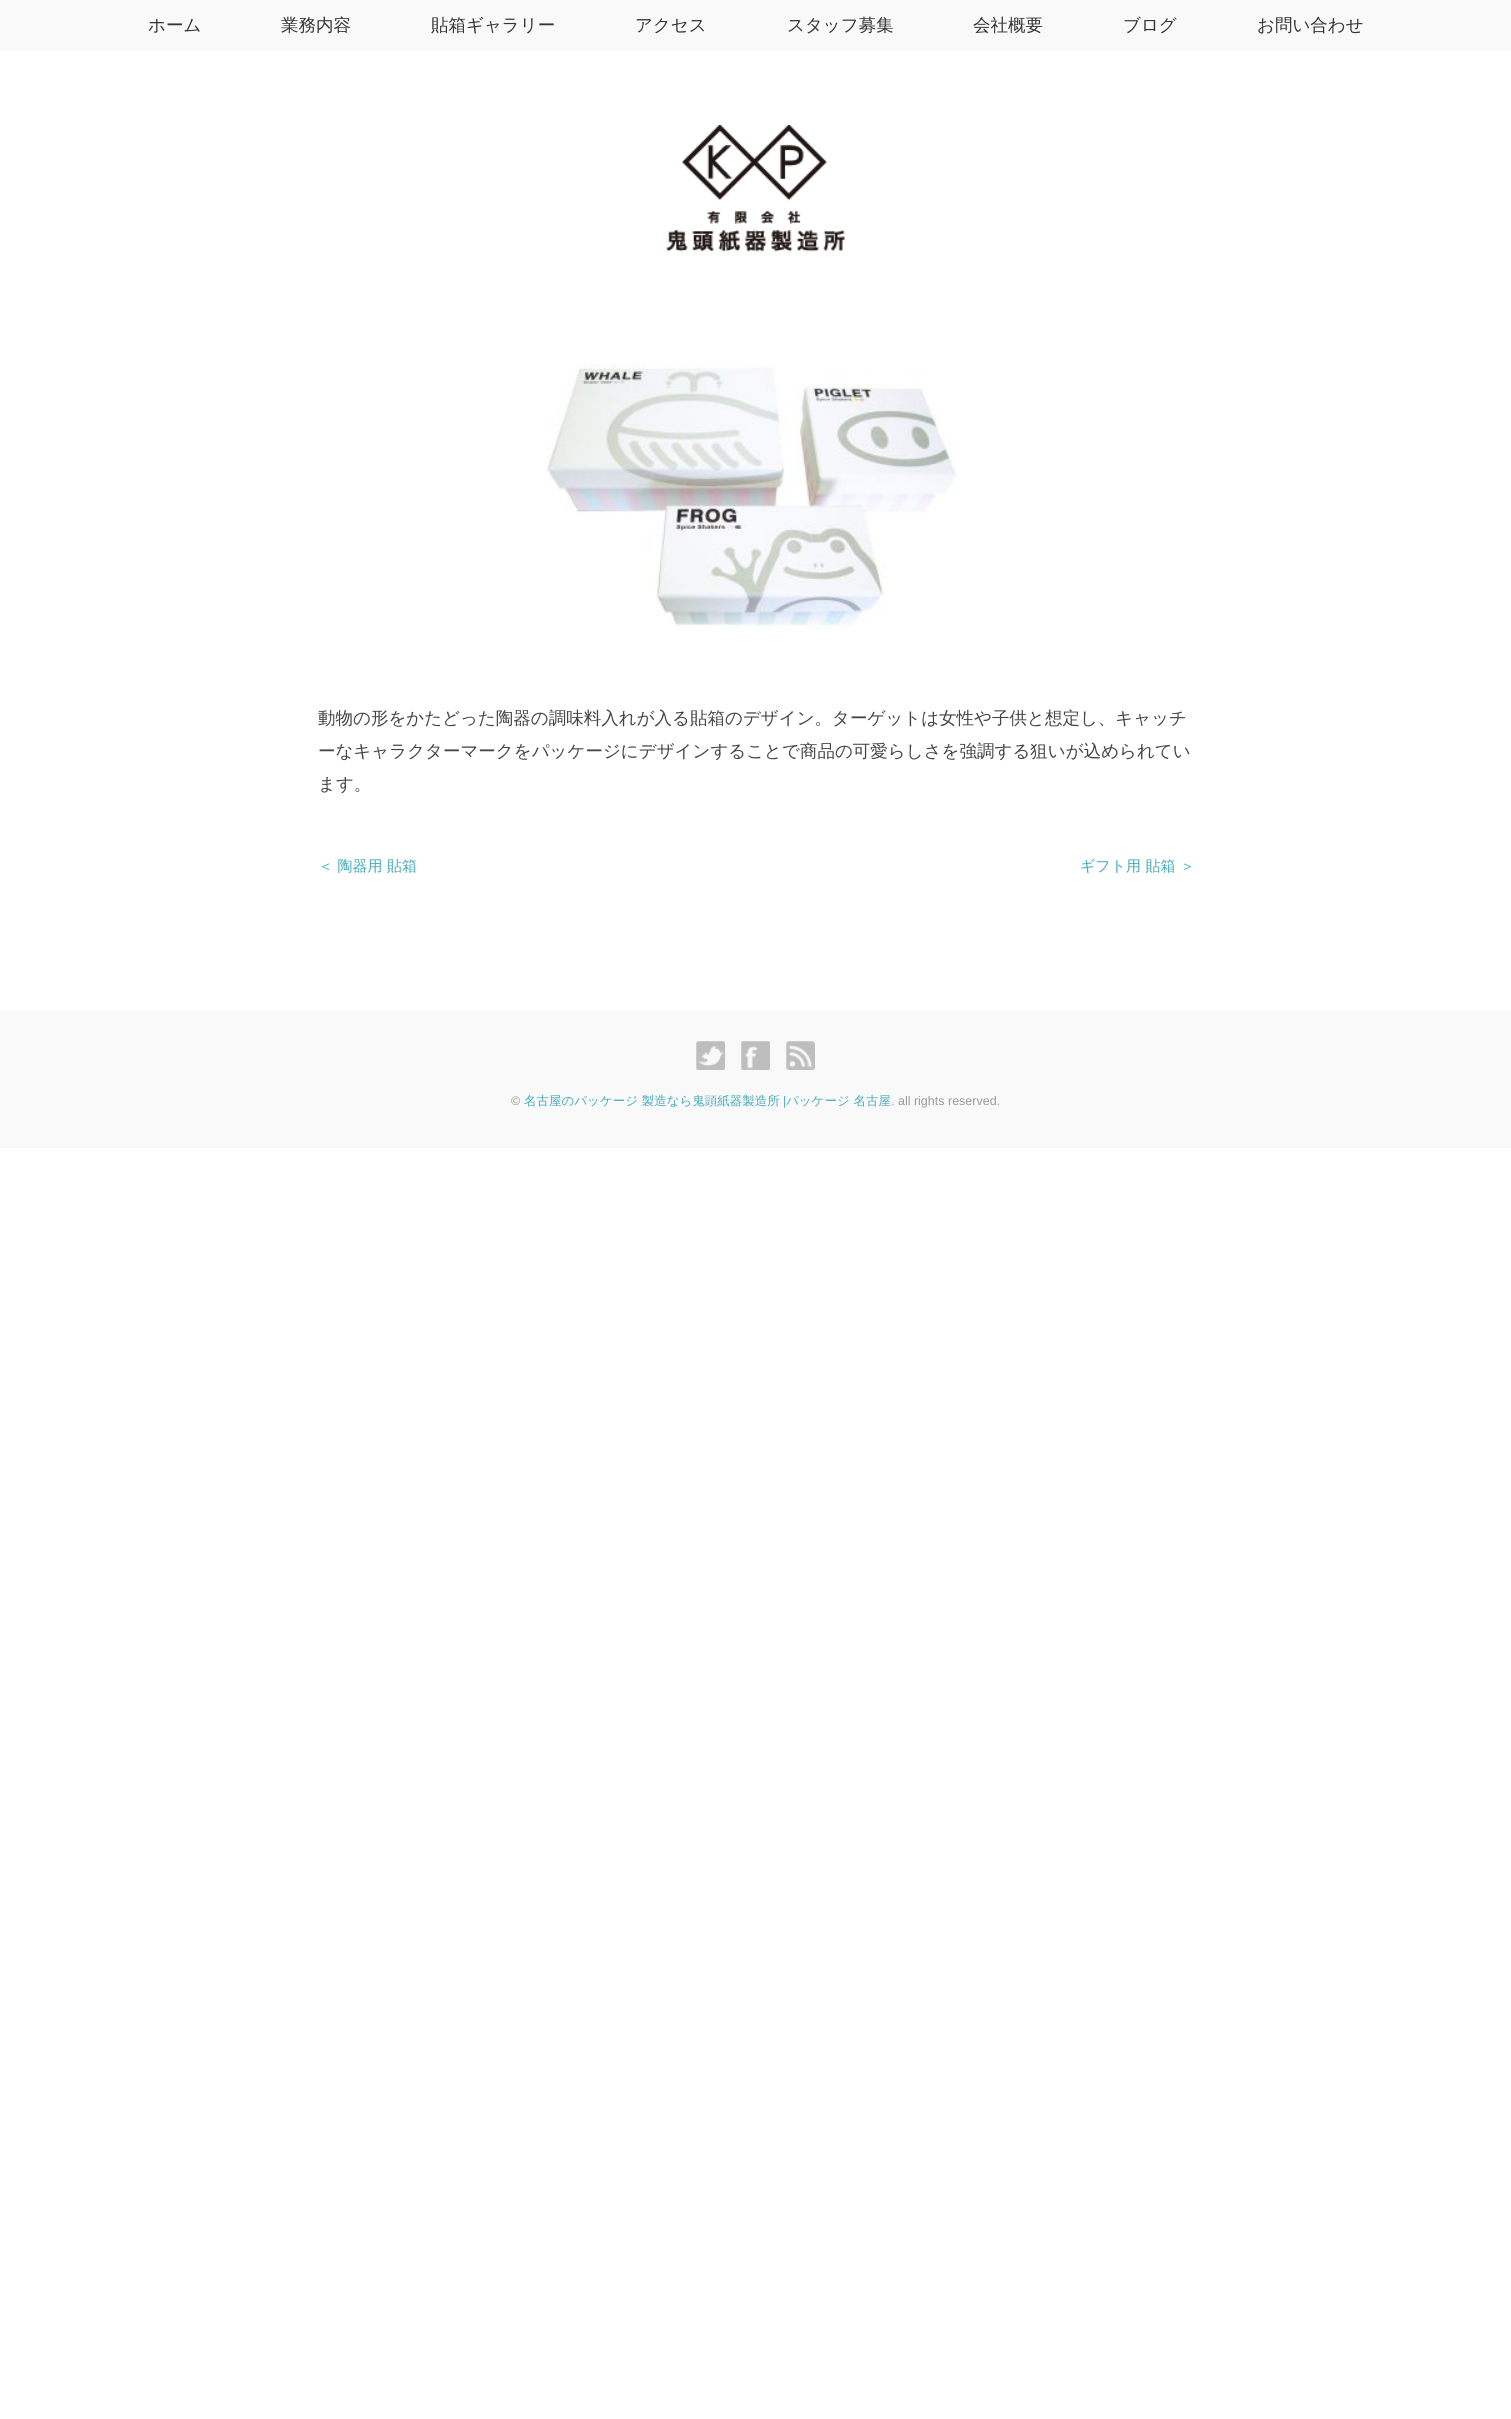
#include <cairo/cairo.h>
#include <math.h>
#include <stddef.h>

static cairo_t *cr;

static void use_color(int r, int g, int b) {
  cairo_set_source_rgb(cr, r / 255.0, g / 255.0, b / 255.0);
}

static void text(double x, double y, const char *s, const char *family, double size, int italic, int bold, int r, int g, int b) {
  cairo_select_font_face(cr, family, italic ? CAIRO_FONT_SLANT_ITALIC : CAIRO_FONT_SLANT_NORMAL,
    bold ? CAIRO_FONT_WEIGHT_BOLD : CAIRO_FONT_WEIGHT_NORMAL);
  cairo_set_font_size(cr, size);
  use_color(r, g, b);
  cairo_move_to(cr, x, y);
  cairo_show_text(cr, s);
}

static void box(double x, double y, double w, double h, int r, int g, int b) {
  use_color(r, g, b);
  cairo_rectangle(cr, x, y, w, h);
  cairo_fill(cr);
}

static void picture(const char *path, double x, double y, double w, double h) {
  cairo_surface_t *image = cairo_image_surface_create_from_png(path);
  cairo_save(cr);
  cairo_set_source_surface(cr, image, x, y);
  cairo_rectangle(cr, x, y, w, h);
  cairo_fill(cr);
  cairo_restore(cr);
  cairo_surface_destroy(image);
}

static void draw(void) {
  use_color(255, 255, 255);
  cairo_paint(cr);
  box(0, 0, 1511, 51, 249, 249, 249);
  picture("img_01.png", 666, 125, 179, 127);
  picture("img_02.png", 547, 364, 410, 269);
  box(0, 1010, 1511, 138, 249, 249, 249);
  picture("img_03.png", 696, 1041, 29, 29);
  picture("img_04.png", 741, 1041, 29, 29);
  picture("img_05.png", 786, 1041, 29, 29);
  text(148, 31, "ホーム", "WenQuanYi Zen Hei Medium", 17.5, 0, 0, 51, 51, 51);
  text(281, 31, "業務内容", "WenQuanYi Zen Hei Medium", 17.5, 0, 0, 51, 51, 51);
  text(431, 31, "貼箱ギャラリー", "WenQuanYi Zen Hei Medium", 17.5, 0, 0, 51, 51, 51);
  text(635, 31, "アクセス", "WenQuanYi Zen Hei Medium", 17.5, 0, 0, 51, 51, 51);
  text(787, 31, "スタッフ募集", "WenQuanYi Zen Hei Medium", 17.5, 0, 0, 51, 51, 51);
  text(973, 31, "会社概要", "WenQuanYi Zen Hei Medium", 17.5, 0, 0, 51, 51, 51);
  text(1123, 31, "ブログ", "WenQuanYi Zen Hei Medium", 17.5, 0, 0, 51, 51, 51);
  text(1257, 31, "お問い合わせ", "WenQuanYi Zen Hei Medium", 17.5, 0, 0, 51, 51, 51);
  text(318, 724, "動物の形をかたどった陶器の調味料入れが入る貼箱のデザイン。ターゲットは女性や子供と想定し、キャッチ", "WenQuanYi Zen Hei Medium", 17.5, 0, 0, 68, 68, 68);
  text(318, 757, "ーなキャラクターマークをパッケージにデザインすることで商品の可愛らしさを強調する狙いが込められてい", "WenQuanYi Zen Hei Medium", 17.5, 0, 0, 68, 68, 68);
  text(318, 790, "ます。", "WenQuanYi Zen Hei Medium", 17.5, 0, 0, 68, 68, 68);
  text(318, 871, "＜ 陶器用 貼箱", "WenQuanYi Zen Hei Medium", 15, 0, 0, 69, 170, 184);
  text(1080, 871, "ギフト用 貼箱 ＞", "WenQuanYi Zen Hei Medium", 15, 0, 0, 69, 170, 184);
  text(511, 1105, "©", "Liberation Sans", 12.5, 0, 0, 153, 153, 153);
  text(524, 1105, "名古屋のパッケージ 製造なら鬼頭紙器製造所", "WenQuanYi Zen Hei Medium", 12.5, 0, 0, 69, 170, 184);
  text(783, 1105, "|", "Liberation Sans", 12.5, 0, 0, 69, 170, 184);
  text(786, 1105, "パッケージ 名古屋", "WenQuanYi Zen Hei Medium", 12.5, 0, 0, 69, 170, 184);
  text(891, 1105, ". all rights reserved.", "Liberation Sans", 12.5, 0, 0, 153, 153, 153);
}

int main(void) {
  cairo_surface_t *surface = cairo_image_surface_create(CAIRO_FORMAT_RGB24, 1511, 2419);
  cr = cairo_create(surface);
  cairo_font_options_t *options = cairo_font_options_create();
  cairo_font_options_set_hint_metrics(options, CAIRO_HINT_METRICS_OFF);
  cairo_font_options_set_hint_style(options, CAIRO_HINT_STYLE_NONE);
  cairo_set_font_options(cr, options);
  cairo_set_miter_limit(cr, 4);
  draw();
  cairo_surface_write_to_png(surface, "out.png");
  cairo_font_options_destroy(options);
  cairo_destroy(cr);
  cairo_surface_destroy(surface);
  return 0;
}
